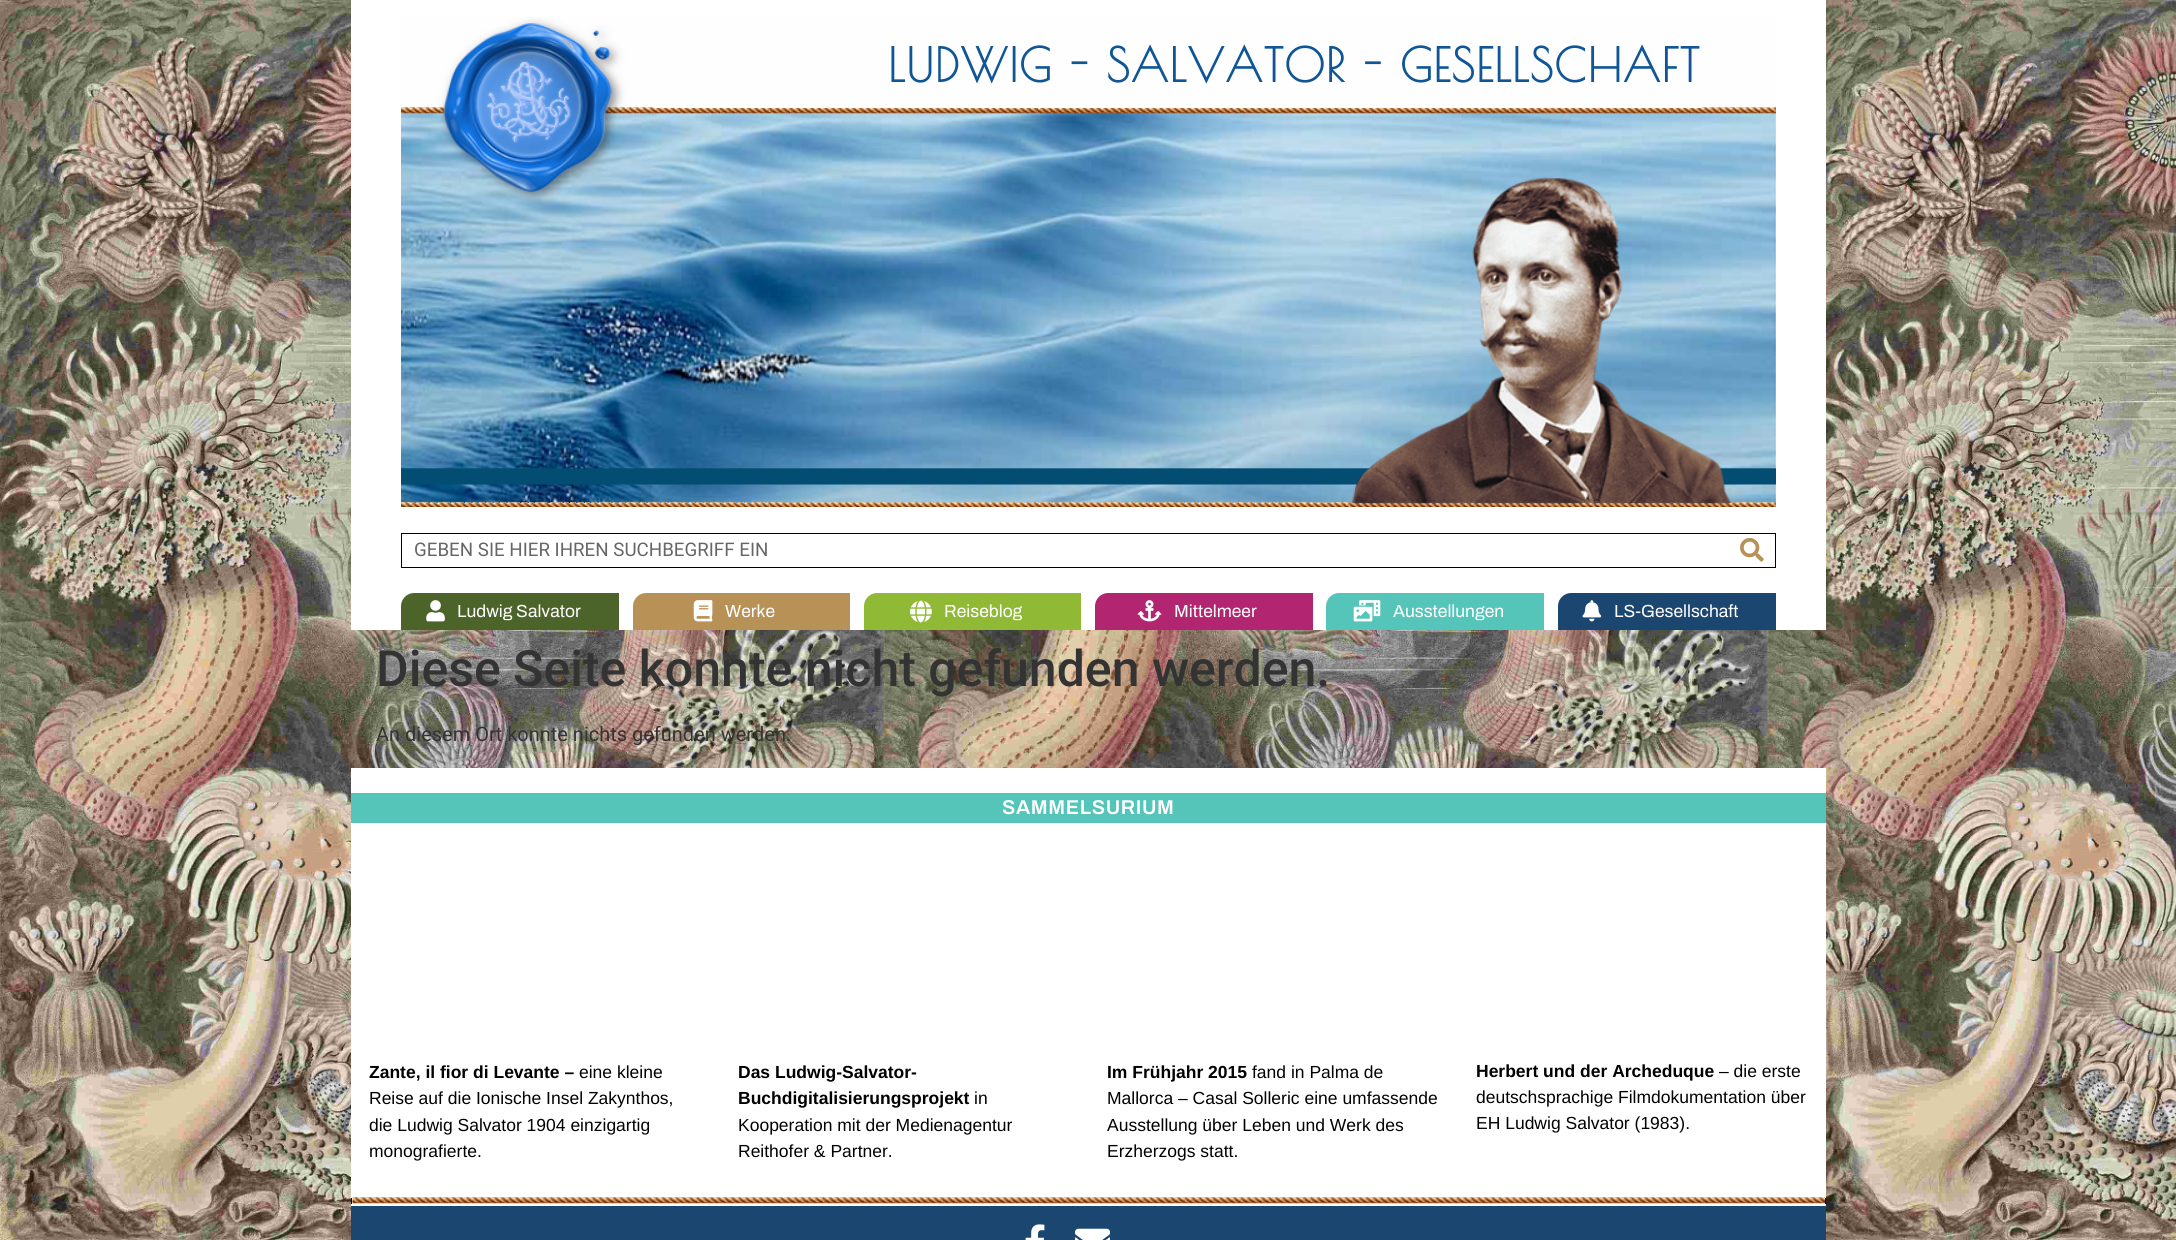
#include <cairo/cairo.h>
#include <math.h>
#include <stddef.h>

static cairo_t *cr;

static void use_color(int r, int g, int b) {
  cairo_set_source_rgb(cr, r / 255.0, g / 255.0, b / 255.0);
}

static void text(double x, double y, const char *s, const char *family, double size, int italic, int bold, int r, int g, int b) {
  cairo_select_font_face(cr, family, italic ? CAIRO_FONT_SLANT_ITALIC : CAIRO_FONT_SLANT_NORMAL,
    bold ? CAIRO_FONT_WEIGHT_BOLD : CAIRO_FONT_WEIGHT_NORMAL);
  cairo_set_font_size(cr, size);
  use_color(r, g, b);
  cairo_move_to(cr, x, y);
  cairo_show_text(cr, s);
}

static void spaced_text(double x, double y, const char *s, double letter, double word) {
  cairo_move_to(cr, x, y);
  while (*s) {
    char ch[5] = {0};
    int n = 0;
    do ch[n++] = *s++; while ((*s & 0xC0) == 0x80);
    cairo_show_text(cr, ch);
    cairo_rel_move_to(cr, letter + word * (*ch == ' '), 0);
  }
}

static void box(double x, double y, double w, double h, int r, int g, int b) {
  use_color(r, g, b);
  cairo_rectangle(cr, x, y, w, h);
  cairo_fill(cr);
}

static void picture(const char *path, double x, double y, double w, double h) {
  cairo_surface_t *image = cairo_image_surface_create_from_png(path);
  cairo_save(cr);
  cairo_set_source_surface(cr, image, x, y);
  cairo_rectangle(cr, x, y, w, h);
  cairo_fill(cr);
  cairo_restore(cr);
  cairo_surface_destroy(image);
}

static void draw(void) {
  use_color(255, 255, 255);
  cairo_paint(cr);
  picture("img_01.png", 0, 0, 2176, 1240);
  box(351, 0, 1475, 630, 255, 255, 255);
  picture("img_03.png", 401, 113, 1375, 390);
  picture("img_02.png", 401, 17, 1375, 490);
  box(654, 106, 1047, 2, 255, 255, 255);
  cairo_rectangle(cr, 401.5, 533.5, 1374, 34);
  use_color(0, 0, 0);
  cairo_set_line_width(cr, 1);
  cairo_stroke(cr);
  picture("img_04.png", 1740, 538, 24, 24);
  use_color(76, 100, 42);
  cairo_new_path(cr);
  cairo_move_to(cr, 414, 593);
  cairo_line_to(cr, 619, 593);
  cairo_line_to(cr, 619, 630);
  cairo_line_to(cr, 401, 630);
  cairo_line_to(cr, 401, 606);
  cairo_curve_to(cr, 401, 599, 407, 593, 414, 593);
  cairo_close_path(cr);
  cairo_fill(cr);
  picture("img_05.png", 426, 600, 19, 22);
  use_color(184, 145, 86);
  cairo_new_path(cr);
  cairo_move_to(cr, 646, 593);
  cairo_line_to(cr, 850, 593);
  cairo_line_to(cr, 850, 630);
  cairo_line_to(cr, 633, 630);
  cairo_line_to(cr, 633, 606);
  cairo_curve_to(cr, 633, 599, 639, 593, 646, 593);
  cairo_close_path(cr);
  cairo_fill(cr);
  picture("img_06.png", 693, 600, 20, 22);
  use_color(144, 186, 53);
  cairo_new_path(cr);
  cairo_move_to(cr, 877, 593);
  cairo_line_to(cr, 1081, 593);
  cairo_line_to(cr, 1081, 630);
  cairo_line_to(cr, 864, 630);
  cairo_line_to(cr, 864, 606);
  cairo_curve_to(cr, 864, 599, 870, 593, 877, 593);
  cairo_close_path(cr);
  cairo_fill(cr);
  picture("img_07.png", 910, 600, 22, 23);
  use_color(178, 37, 113);
  cairo_new_path(cr);
  cairo_move_to(cr, 1108, 593);
  cairo_line_to(cr, 1313, 593);
  cairo_line_to(cr, 1313, 630);
  cairo_line_to(cr, 1095, 630);
  cairo_line_to(cr, 1095, 606);
  cairo_curve_to(cr, 1095, 599, 1101, 593, 1108, 593);
  cairo_close_path(cr);
  cairo_fill(cr);
  picture("img_08.png", 1137, 600, 25, 22);
  use_color(85, 197, 185);
  cairo_new_path(cr);
  cairo_move_to(cr, 1339, 593);
  cairo_line_to(cr, 1544, 593);
  cairo_line_to(cr, 1544, 630);
  cairo_line_to(cr, 1326, 630);
  cairo_line_to(cr, 1326, 606);
  cairo_curve_to(cr, 1326, 599, 1332, 593, 1339, 593);
  cairo_close_path(cr);
  cairo_fill(cr);
  picture("img_09.png", 1353, 600, 28, 22);
  use_color(27, 70, 112);
  cairo_new_path(cr);
  cairo_move_to(cr, 1571, 593);
  cairo_line_to(cr, 1776, 593);
  cairo_line_to(cr, 1776, 630);
  cairo_line_to(cr, 1558, 630);
  cairo_line_to(cr, 1558, 606);
  cairo_curve_to(cr, 1558, 599, 1564, 593, 1571, 593);
  cairo_close_path(cr);
  cairo_fill(cr);
  picture("img_10.png", 1582, 600, 20, 22);
  box(351, 768, 1475, 25, 255, 255, 255);
  box(351, 793, 1475, 30, 85, 197, 185);
  box(351, 823, 369, 378, 255, 255, 255);
  box(720, 823, 738, 374, 255, 255, 255);
  box(1458, 823, 368, 375, 255, 255, 255);
  box(351, 1201, 1475, 5, 255, 255, 255);
  box(1825, 1198, 1, 6, 0, 0, 0);
  box(351, 1198, 1, 6, 0, 0, 0);
  picture("img_11.png", 352, 1197, 1473, 7);
  box(351, 1206, 1475, 34, 27, 70, 112);
  picture("img_12.png", 1025, 1224, 20, 16);
  picture("img_13.png", 1075, 1228, 35, 12);
  cairo_select_font_face(cr, "Poiret One", CAIRO_FONT_SLANT_NORMAL, CAIRO_FONT_WEIGHT_BOLD);
  cairo_set_font_size(cr, 46.25);
  use_color(15, 86, 151);
  spaced_text(888, 82, "LUDWIG - SALVATOR - GESELLSCHAFT", 1.25, 0);
  text(414, 556, "GEBEN SIE HIER IHREN SUCHBEGRIFF EIN", "Roboto", 18.75, 0, 0, 102, 102, 102);
  text(457, 617, "Ludwig Salvator", "Archivo", 17.5, 0, 0, 255, 255, 255);
  text(725, 617, "Werke", "Archivo", 17.5, 0, 0, 255, 255, 255);
  text(944, 617, "Reiseblog", "Archivo", 17.5, 0, 0, 255, 255, 255);
  text(1174, 617, "Mittelmeer", "Archivo", 17.5, 0, 0, 255, 255, 255);
  text(1393, 617, "Ausstellungen", "Archivo", 17.5, 0, 0, 255, 255, 255);
  text(1614, 617, "LS-Gesellschaft", "Archivo", 17.5, 0, 0, 255, 255, 255);
  text(376, 686, "Diese Seite konnte nicht gefunden werden.", "Roboto Medium", 50, 0, 0, 51, 51, 51);
  text(376, 741, "An diesem Ort konnte nichts gefunden werden.", "Roboto", 20, 0, 0, 51, 51, 51);
  cairo_select_font_face(cr, "Archivo SemiBold", CAIRO_FONT_SLANT_NORMAL, CAIRO_FONT_WEIGHT_NORMAL);
  use_color(255, 255, 255);
  spaced_text(1002, 814, "SAMMELSURIUM", 0.6, 0);
  text(369, 1078, "Zante, il fior di Levante –", "Liberation Sans", 17.5, 0, 1, 0, 0, 0);
  text(579, 1078, "eine kleine", "Liberation Sans", 17.5, 0, 0, 0, 0, 0);
  text(369, 1104, "Reise auf die Ionische Insel Zakynthos,", "Liberation Sans", 17.5, 0, 0, 0, 0, 0);
  text(369, 1131, "die Ludwig Salvator 1904 einzigartig", "Liberation Sans", 17.5, 0, 0, 0, 0, 0);
  text(369, 1157, "monografierte.", "Liberation Sans", 17.5, 0, 0, 0, 0, 0);
  text(738, 1078, "Das Ludwig-Salvator-", "Liberation Sans", 17.5, 0, 1, 0, 0, 0);
  text(738, 1104, "Buchdigitalisierungsprojekt", "Liberation Sans", 17.5, 0, 1, 0, 0, 0);
  text(974, 1104, "in", "Liberation Sans", 17.5, 0, 0, 0, 0, 0);
  text(738, 1131, "Kooperation mit der Medienagentur", "Liberation Sans", 17.5, 0, 0, 0, 0, 0);
  text(738, 1157, "Reithofer & Partner.", "Liberation Sans", 17.5, 0, 0, 0, 0, 0);
  text(1107, 1078, "Im Frühjahr 2015", "Liberation Sans", 17.5, 0, 1, 0, 0, 0);
  text(1252, 1078, "fand in Palma de", "Liberation Sans", 17.5, 0, 0, 0, 0, 0);
  text(1107, 1104, "Mallorca – Casal Solleric eine umfassende", "Liberation Sans", 17.5, 0, 0, 0, 0, 0);
  text(1107, 1131, "Ausstellung über Leben und Werk des", "Liberation Sans", 17.5, 0, 0, 0, 0, 0);
  text(1107, 1157, "Erzherzogs statt.", "Liberation Sans", 17.5, 0, 0, 0, 0, 0);
  text(1476, 1077, "Herbert und der Archeduque", "Liberation Sans", 17.5, 0, 1, 0, 0, 0);
  text(1719, 1077, "– die erste", "Liberation Sans", 17.5, 0, 0, 0, 0, 0);
  text(1476, 1103, "deutschsprachige Filmdokumentation über", "Liberation Sans", 17.5, 0, 0, 0, 0, 0);
  text(1476, 1129, "EH Ludwig Salvator (1983).", "Liberation Sans", 17.5, 0, 0, 0, 0, 0);
}

int main(void) {
  cairo_surface_t *surface = cairo_image_surface_create(CAIRO_FORMAT_RGB24, 2176, 1240);
  cr = cairo_create(surface);
  cairo_font_options_t *options = cairo_font_options_create();
  cairo_font_options_set_hint_metrics(options, CAIRO_HINT_METRICS_OFF);
  cairo_font_options_set_hint_style(options, CAIRO_HINT_STYLE_NONE);
  cairo_set_font_options(cr, options);
  cairo_set_miter_limit(cr, 4);
  draw();
  cairo_surface_write_to_png(surface, "out.png");
  cairo_font_options_destroy(options);
  cairo_destroy(cr);
  cairo_surface_destroy(surface);
  return 0;
}
